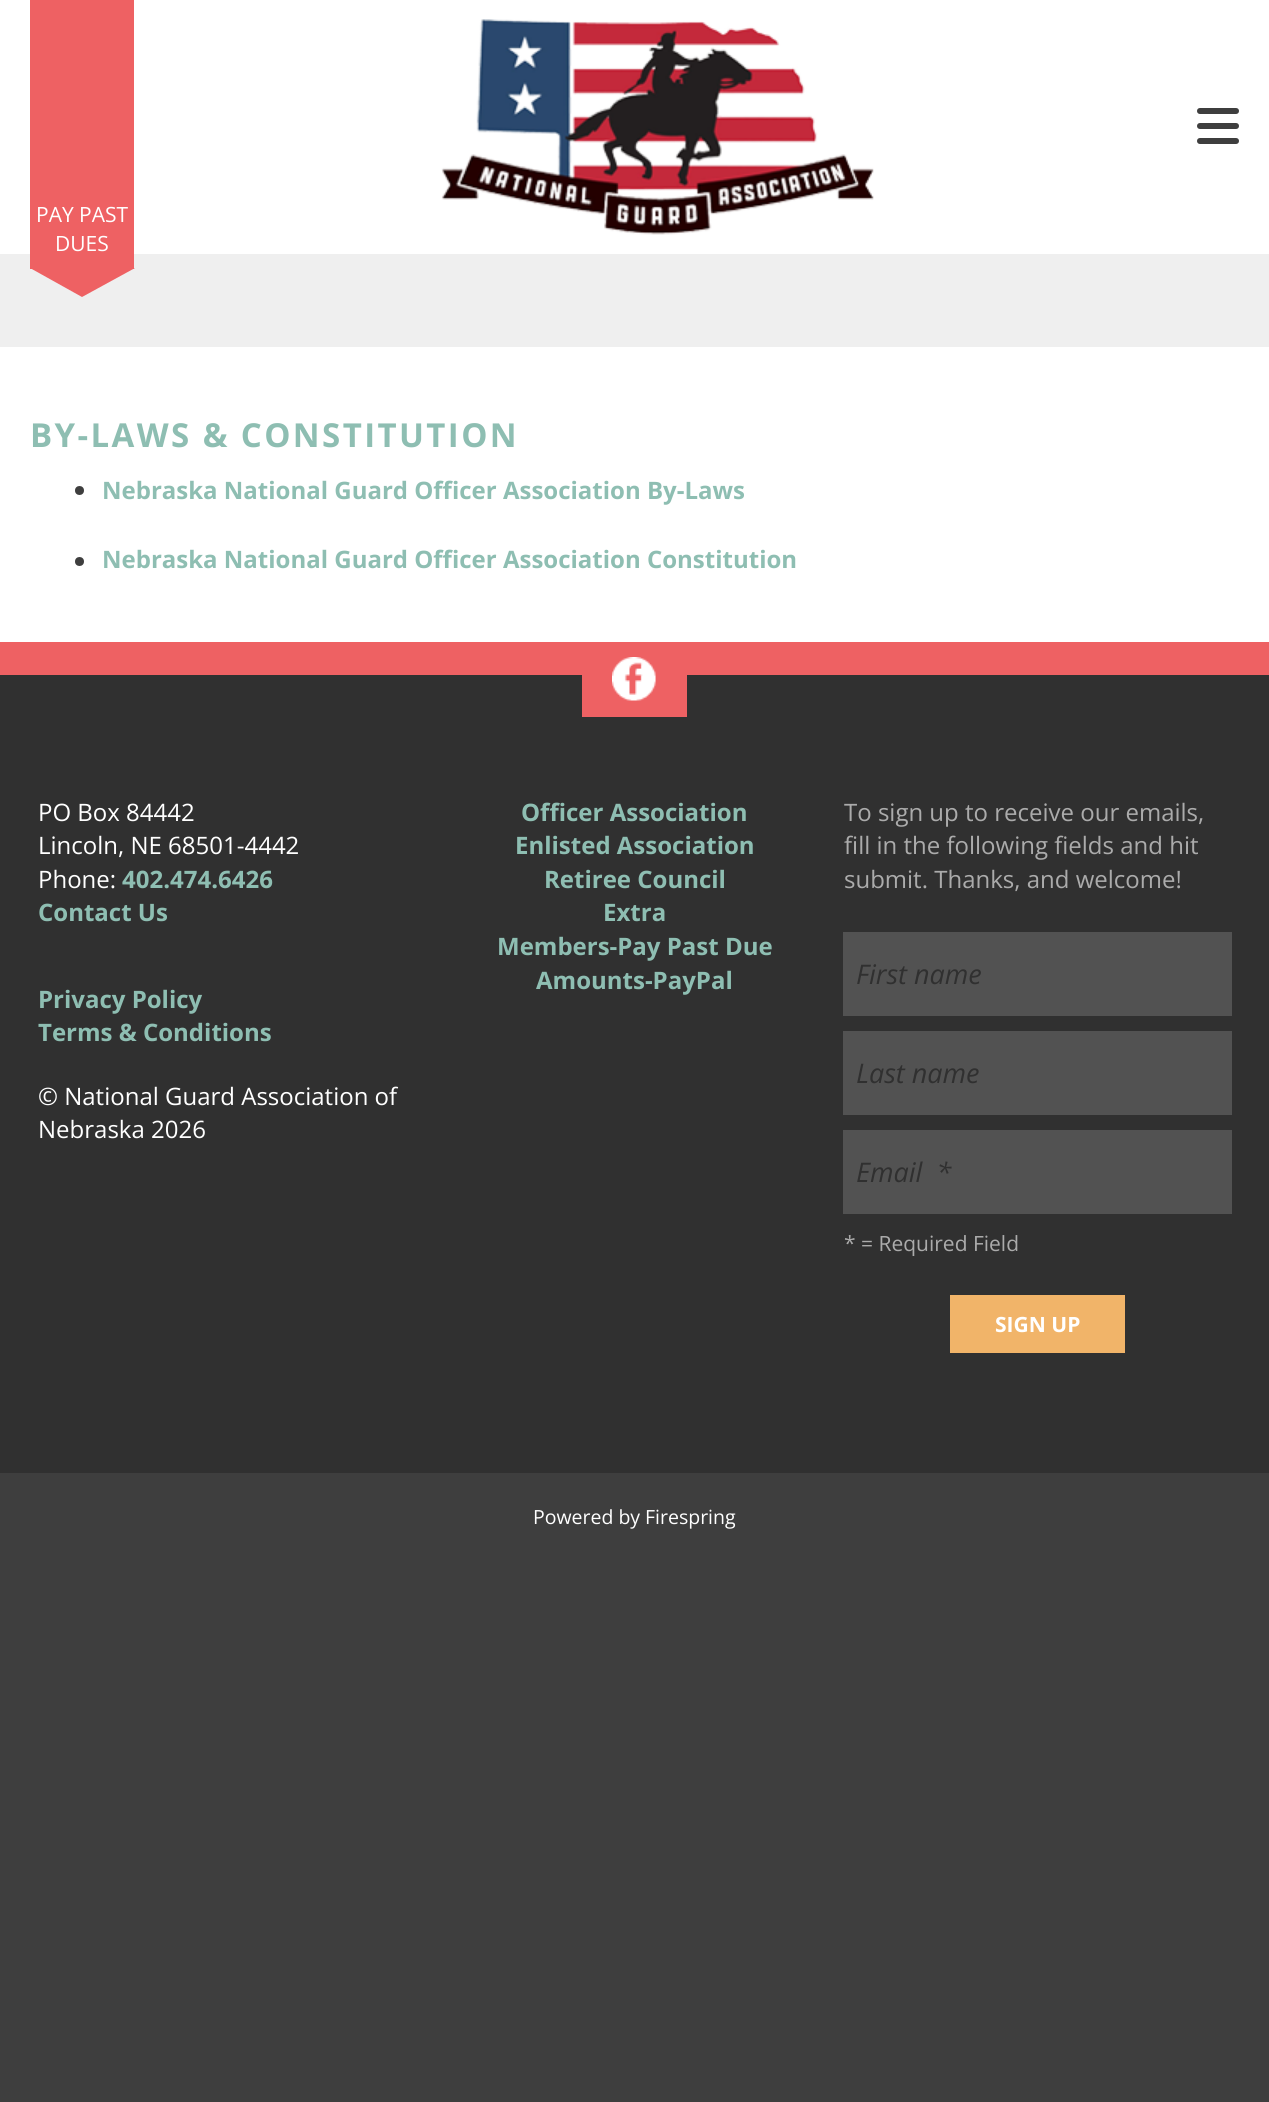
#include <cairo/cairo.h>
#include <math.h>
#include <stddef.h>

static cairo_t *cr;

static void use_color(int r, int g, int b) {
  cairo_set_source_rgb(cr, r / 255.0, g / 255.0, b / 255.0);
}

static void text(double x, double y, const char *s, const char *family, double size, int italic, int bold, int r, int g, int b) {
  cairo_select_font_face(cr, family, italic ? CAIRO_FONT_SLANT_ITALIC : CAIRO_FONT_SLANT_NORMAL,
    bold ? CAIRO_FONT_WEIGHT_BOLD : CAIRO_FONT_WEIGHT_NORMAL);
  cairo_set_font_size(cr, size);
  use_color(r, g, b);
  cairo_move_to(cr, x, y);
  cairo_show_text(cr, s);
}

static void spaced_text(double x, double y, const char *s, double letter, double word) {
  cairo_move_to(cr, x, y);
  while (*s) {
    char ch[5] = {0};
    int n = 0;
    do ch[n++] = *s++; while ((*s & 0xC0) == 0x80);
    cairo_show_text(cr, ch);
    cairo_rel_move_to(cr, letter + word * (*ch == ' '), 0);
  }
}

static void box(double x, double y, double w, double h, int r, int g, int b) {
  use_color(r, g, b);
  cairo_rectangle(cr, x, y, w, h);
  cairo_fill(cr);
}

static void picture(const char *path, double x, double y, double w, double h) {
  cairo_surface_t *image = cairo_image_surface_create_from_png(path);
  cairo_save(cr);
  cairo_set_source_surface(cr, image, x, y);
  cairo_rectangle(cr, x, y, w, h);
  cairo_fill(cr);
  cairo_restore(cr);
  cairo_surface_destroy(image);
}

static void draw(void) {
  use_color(62, 62, 62);
  cairo_paint(cr);
  box(0, 0, 1269, 254, 255, 255, 255);
  picture("img_01.png", 441, 19, 433, 216);
  picture("img_02.png", 1197, 108, 42, 36);
  box(0, 254, 1269, 93, 239, 239, 239);
  box(30, 0, 104, 269, 238, 97, 99);
  cairo_new_path(cr);
  cairo_move_to(cr, 30, 268);
  cairo_line_to(cr, 135, 268);
  cairo_line_to(cr, 82, 297);
  cairo_close_path(cr);
  cairo_fill(cr);
  box(0, 347, 1269, 295, 255, 255, 255);
  use_color(62, 62, 62);
  cairo_arc(cr, 79.5, 490.5, 4.5, 0, 2 * M_PI);
  cairo_fill(cr);
  cairo_arc(cr, 79.5, 561.5, 4.5, 0, 2 * M_PI);
  cairo_fill(cr);
  box(0, 642, 1269, 33, 238, 97, 99);
  box(0, 675, 1269, 798, 48, 48, 48);
  box(582, 675, 105, 42, 238, 97, 99);
  picture("img_03.png", 612, 657, 44, 44);
  box(843, 932, 389, 84, 82, 82, 82);
  box(843, 1031, 389, 84, 82, 82, 82);
  box(843, 1130, 389, 84, 82, 82, 82);
  box(950, 1295, 175, 58, 241, 180, 105);
  text(36, 222, "PAY PAST", "Open Sans", 21, 0, 0, 255, 255, 255);
  text(55, 251, "DUES", "Open Sans", 21, 0, 0, 255, 255, 255);
  cairo_select_font_face(cr, "Open Sans", CAIRO_FONT_SLANT_NORMAL, CAIRO_FONT_WEIGHT_BOLD);
  cairo_set_font_size(cr, 33);
  use_color(142, 190, 178);
  spaced_text(30, 447, "BY-LAWS & CONSTITUTION", 2.4, 0);
  text(102, 499, "Nebraska National Guard Officer Association By-Laws", "Open Sans", 24, 0, 1, 142, 190, 178);
  text(102, 568, "Nebraska National Guard Officer Association Constitution", "Open Sans", 24, 0, 1, 142, 190, 178);
  text(38, 821, "PO Box 84442", "Open Sans", 24, 0, 0, 255, 255, 255);
  text(38, 854, "Lincoln, NE 68501-4442", "Open Sans", 24, 0, 0, 255, 255, 255);
  text(38, 888, "Phone:", "Open Sans", 24, 0, 0, 255, 255, 255);
  text(122, 888, "402.474.6426", "Open Sans", 24, 0, 1, 142, 190, 178);
  text(38, 921, "Contact Us", "Open Sans", 24, 0, 1, 142, 190, 178);
  text(38, 1008, "Privacy Policy", "Open Sans", 24, 0, 1, 142, 190, 178);
  text(38, 1041, "Terms & Conditions", "Open Sans", 24, 0, 1, 142, 190, 178);
  text(38, 1105, "© National Guard Association of", "Open Sans", 24, 0, 0, 255, 255, 255);
  text(38, 1138, "Nebraska 2026", "Open Sans", 24, 0, 0, 255, 255, 255);
  text(521, 821, "Officer Association", "Open Sans", 24, 0, 1, 142, 190, 178);
  text(515, 854, "Enlisted Association", "Open Sans", 24, 0, 1, 142, 190, 178);
  text(544, 888, "Retiree Council", "Open Sans", 24, 0, 1, 142, 190, 178);
  text(603, 921, "Extra", "Open Sans", 24, 0, 1, 142, 190, 178);
  text(497, 955, "Members-Pay Past Due", "Open Sans", 24, 0, 1, 142, 190, 178);
  text(536, 989, "Amounts-PayPal", "Open Sans", 24, 0, 1, 142, 190, 178);
  text(844, 821, "To sign up to receive our emails,", "Open Sans", 24, 0, 0, 171, 171, 171);
  text(844, 854, "fill in the following fields and hit", "Open Sans", 24, 0, 0, 171, 171, 171);
  text(844, 888, "submit. Thanks, and welcome!", "Open Sans", 24, 0, 0, 171, 171, 171);
  text(856, 984, "First name", "Open Sans", 27, 1, 0, 48, 48, 48);
  text(856, 1083, "Last name", "Open Sans", 27, 1, 0, 48, 48, 48);
  text(856, 1182, "Email  *", "Open Sans", 27, 1, 0, 48, 48, 48);
  text(844, 1251, "* = Required Field", "Open Sans", 21, 0, 0, 171, 171, 171);
  text(995, 1332, "SIGN UP", "Open Sans", 21, 0, 1, 255, 255, 255);
  text(533, 1524, "Powered by", "Open Sans", 19.5, 0, 0, 255, 255, 255);
  text(645, 1524, "Firespring", "Open Sans", 19.5, 0, 0, 255, 255, 255);
}

int main(void) {
  cairo_surface_t *surface = cairo_image_surface_create(CAIRO_FORMAT_RGB24, 1269, 2102);
  cr = cairo_create(surface);
  cairo_font_options_t *options = cairo_font_options_create();
  cairo_font_options_set_hint_metrics(options, CAIRO_HINT_METRICS_OFF);
  cairo_font_options_set_hint_style(options, CAIRO_HINT_STYLE_NONE);
  cairo_set_font_options(cr, options);
  cairo_set_miter_limit(cr, 4);
  draw();
  cairo_surface_write_to_png(surface, "out.png");
  cairo_font_options_destroy(options);
  cairo_destroy(cr);
  cairo_surface_destroy(surface);
  return 0;
}
